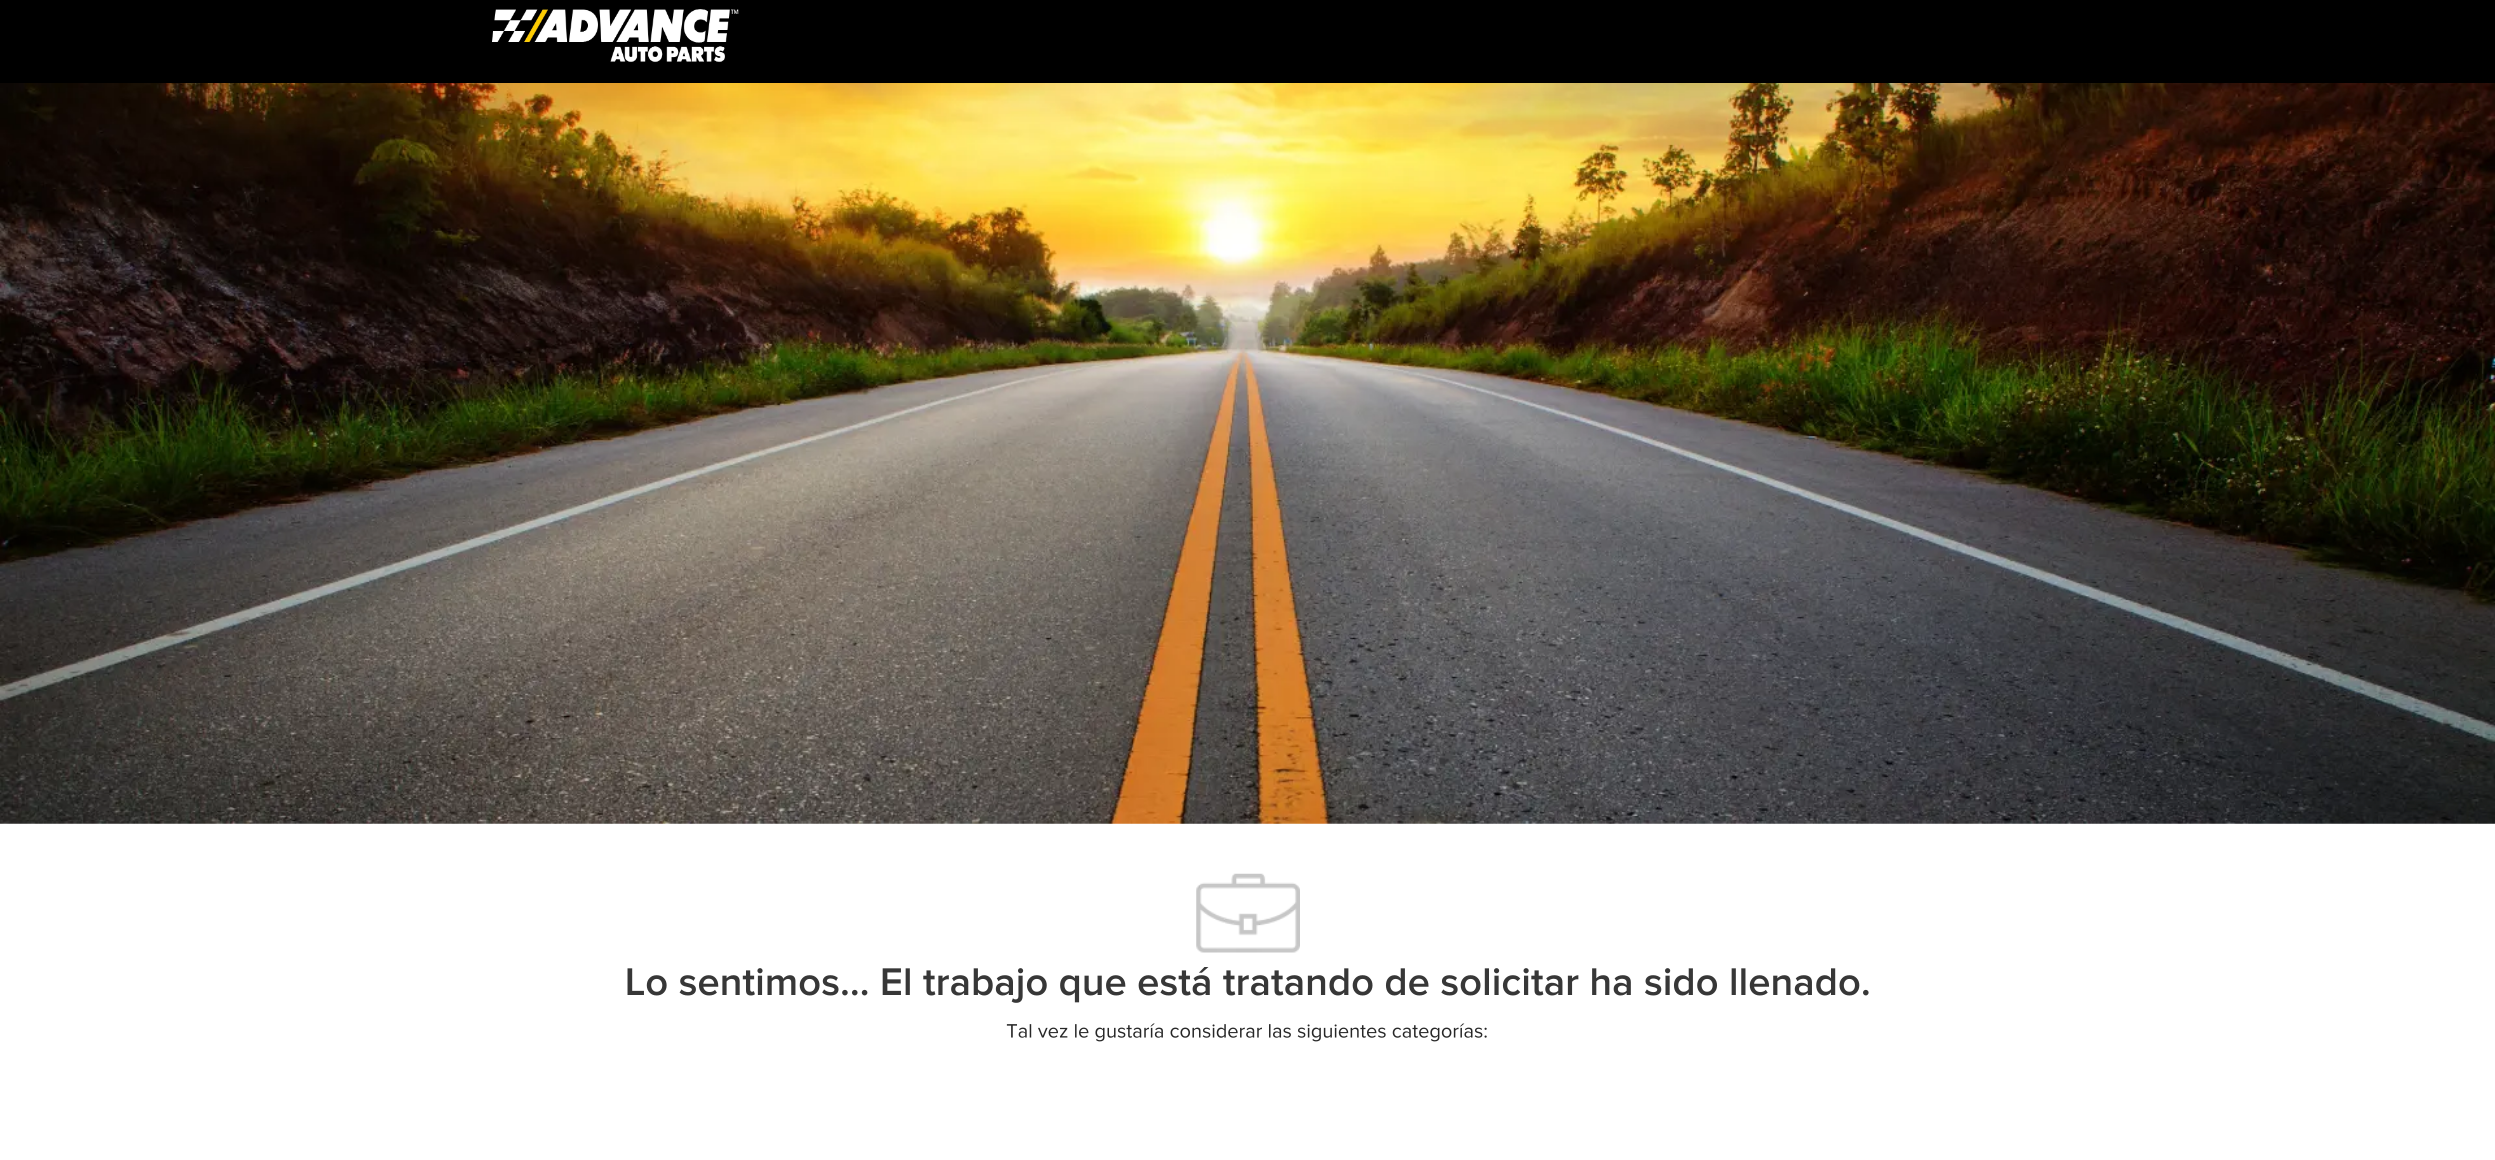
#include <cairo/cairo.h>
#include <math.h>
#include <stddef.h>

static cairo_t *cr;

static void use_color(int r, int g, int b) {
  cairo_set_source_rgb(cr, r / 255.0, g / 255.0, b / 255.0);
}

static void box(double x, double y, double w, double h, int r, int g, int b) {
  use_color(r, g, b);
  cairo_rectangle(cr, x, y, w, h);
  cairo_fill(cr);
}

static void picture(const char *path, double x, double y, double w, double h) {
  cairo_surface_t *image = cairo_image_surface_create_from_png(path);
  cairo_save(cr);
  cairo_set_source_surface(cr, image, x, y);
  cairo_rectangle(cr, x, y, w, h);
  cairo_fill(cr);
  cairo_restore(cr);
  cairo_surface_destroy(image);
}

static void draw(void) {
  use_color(255, 255, 255);
  cairo_paint(cr);
  box(0, 0, 2495, 83, 0, 0, 0);
  picture("img_01.png", 492, 9, 247, 54);
  picture("img_02.png", 0, 83, 2495, 741);
  picture("img_03.png", 1196, 873, 104, 80);
  picture("img_04.png", 627, 967, 1242, 36);
  picture("img_05.png", 1006, 1023, 481, 19);
}

int main(void) {
  cairo_surface_t *surface = cairo_image_surface_create(CAIRO_FORMAT_RGB24, 2495, 1160);
  cr = cairo_create(surface);
  cairo_font_options_t *options = cairo_font_options_create();
  cairo_font_options_set_hint_metrics(options, CAIRO_HINT_METRICS_OFF);
  cairo_font_options_set_hint_style(options, CAIRO_HINT_STYLE_NONE);
  cairo_set_font_options(cr, options);
  cairo_set_miter_limit(cr, 4);
  draw();
  cairo_surface_write_to_png(surface, "out.png");
  cairo_font_options_destroy(options);
  cairo_destroy(cr);
  cairo_surface_destroy(surface);
  return 0;
}
